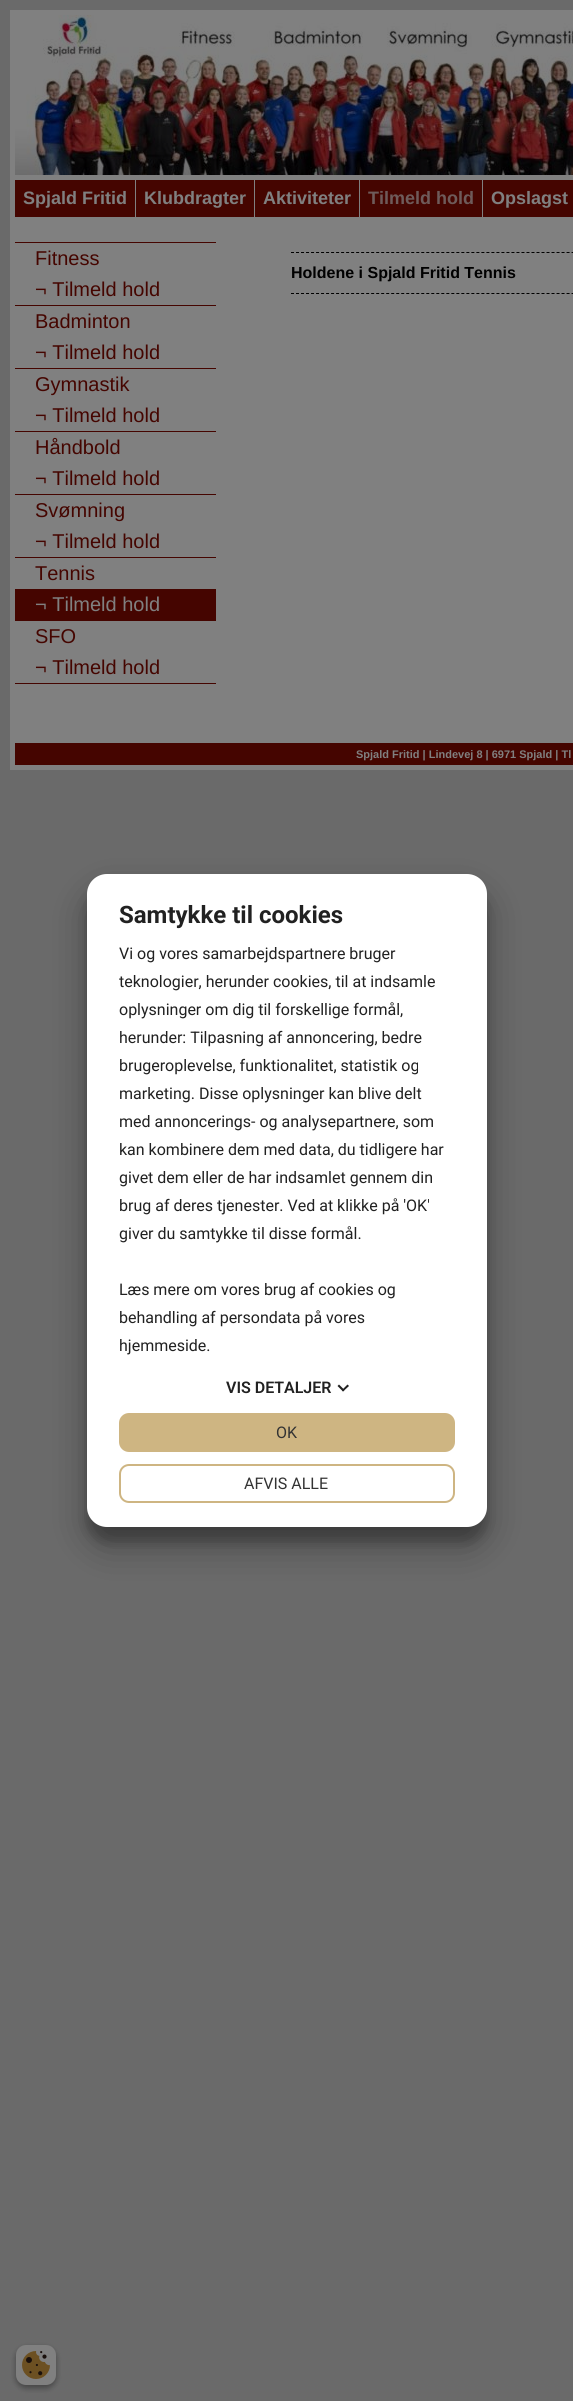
#include <cairo/cairo.h>
#include <math.h>
#include <stddef.h>

static cairo_t *cr;

static void use_color(int r, int g, int b) {
  cairo_set_source_rgb(cr, r / 255.0, g / 255.0, b / 255.0);
}

static void text(double x, double y, const char *s, const char *family, double size, int italic, int bold, int r, int g, int b) {
  cairo_select_font_face(cr, family, italic ? CAIRO_FONT_SLANT_ITALIC : CAIRO_FONT_SLANT_NORMAL,
    bold ? CAIRO_FONT_WEIGHT_BOLD : CAIRO_FONT_WEIGHT_NORMAL);
  cairo_set_font_size(cr, size);
  use_color(r, g, b);
  cairo_move_to(cr, x, y);
  cairo_show_text(cr, s);
}

static void box(double x, double y, double w, double h, int r, int g, int b) {
  use_color(r, g, b);
  cairo_rectangle(cr, x, y, w, h);
  cairo_fill(cr);
}

static void round_rect(double x, double y, double w, double h, double r) {
  cairo_new_sub_path(cr);
  cairo_arc(cr, x + w - r, y + h - r, r, 0, M_PI / 2);
  cairo_arc(cr, x + r, y + h - r, r, M_PI / 2, M_PI);
  cairo_arc(cr, x + r, y + r, r, M_PI, 1.5 * M_PI);
  cairo_arc(cr, x + w - r, y + r, r, 1.5 * M_PI, 2 * M_PI);
  cairo_close_path(cr);
}

static void shadow(double x, double y, double w, double h, double r, double blur, double alpha) {
  cairo_push_group_with_content(cr, CAIRO_CONTENT_ALPHA);
  cairo_set_operator(cr, CAIRO_OPERATOR_SOURCE);
  for (int i = 15; i >= -15 && fmin(w, h) + blur * i / 3 > 0; i -= 2) {
    double e = blur * i / 6;
    cairo_set_source_rgba(cr, 0, 0, 0, alpha * erfc((i - 1) / 8.5) / 2);
    round_rect(x - e, y - e, w + 2 * e, h + 2 * e, fmax(0, fmin(r + e + blur * .6, fmin(w, h) / 2 + e)));
    cairo_fill(cr);
  }
  cairo_pattern_t *soft = cairo_pop_group(cr);
  cairo_mask(cr, soft);
  cairo_pattern_destroy(soft);
}

static void picture(const char *path, double x, double y, double w, double h) {
  cairo_surface_t *image = cairo_image_surface_create_from_png(path);
  cairo_save(cr);
  cairo_set_source_surface(cr, image, x, y);
  cairo_rectangle(cr, x, y, w, h);
  cairo_fill(cr);
  cairo_restore(cr);
  cairo_surface_destroy(image);
}

static void draw(void) {
  use_color(106, 106, 106);
  cairo_paint(cr);
  box(10, 10, 563, 760, 128, 128, 128);
  picture("img_01.png", 15, 15, 558, 160);
  box(15, 180, 558, 37, 69, 5, 0);
  box(135, 180, 1, 37, 128, 128, 128);
  box(254, 180, 1, 37, 128, 128, 128);
  box(359, 180, 1, 37, 128, 128, 128);
  box(482, 180, 1, 37, 128, 128, 128);
  box(15, 683, 201, 1, 69, 5, 0);
  box(15, 242, 201, 1, 69, 5, 0);
  box(15, 305, 201, 1, 69, 5, 0);
  box(15, 368, 201, 1, 69, 5, 0);
  box(15, 431, 201, 1, 69, 5, 0);
  box(15, 494, 201, 1, 69, 5, 0);
  box(15, 557, 201, 1, 69, 5, 0);
  box(15, 589, 201, 32, 69, 5, 0);
  cairo_new_path(cr);
  cairo_move_to(cr, 291, 252.5);
  cairo_line_to(cr, 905, 252.5);
  use_color(0, 0, 0);
  cairo_set_line_width(cr, 1);
  cairo_set_dash(cr, (double[]){3, 2.01}, 2, 0);
  cairo_stroke(cr);
  cairo_new_path(cr);
  cairo_move_to(cr, 291, 293.5);
  cairo_line_to(cr, 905, 293.5);
  cairo_stroke(cr);
  box(15, 743, 558, 22, 69, 5, 0);
  use_color(0, 0, 0);
  shadow(87, 889, 400, 653, 20, 6, 0.22);
  shadow(87, 893, 400, 653, 20, 19, 0.3);
  use_color(255, 255, 255);
  round_rect(87, 874, 400, 653, 20);
  cairo_fill(cr);
  use_color(33, 33, 33);
  cairo_new_path(cr);
  cairo_move_to(cr, 347.5, 1384.5);
  cairo_line_to(cr, 349, 1386);
  cairo_line_to(cr, 343, 1391.5);
  cairo_line_to(cr, 342, 1390);
  cairo_close_path(cr);
  cairo_fill(cr);
  cairo_new_path(cr);
  cairo_move_to(cr, 339, 1384.5);
  cairo_line_to(cr, 344.5, 1390);
  cairo_line_to(cr, 343, 1391.5);
  cairo_line_to(cr, 337.5, 1386);
  cairo_close_path(cr);
  cairo_fill(cr);
  use_color(206, 181, 130);
  round_rect(120, 1414, 334, 37, 9);
  cairo_fill_preserve(cr);
  cairo_set_line_width(cr, 2);
  cairo_set_dash(cr, NULL, 0, 0);
  cairo_stroke(cr);
  round_rect(120, 1465, 334, 37, 9);
  cairo_stroke(cr);
  use_color(0, 0, 0);
  shadow(16, 2348, 40, 40, 10, 3, 0.23);
  shadow(16, 2348, 40, 40, 10, 3, 0.16);
  use_color(128, 128, 128);
  round_rect(16, 2345, 40, 40, 10);
  cairo_fill(cr);
  picture("img_02.png", 22, 2351, 28, 28);
  text(23, 204, "Spjald Fritid", "Liberation Sans", 18, 0, 1, 128, 128, 128);
  text(144, 204, "Klubdragter", "Liberation Sans", 18, 0, 1, 128, 128, 128);
  text(263, 204, "Aktiviteter", "Liberation Sans", 18, 0, 1, 128, 128, 128);
  text(368, 204, "Tilmeld hold", "Liberation Sans", 18, 0, 1, 110, 91, 90);
  text(491, 204, "Opslagst", "Liberation Sans", 18, 0, 1, 128, 128, 128);
  text(35, 265, "Fitness", "Liberation Sans", 20, 0, 0, 69, 5, 0);
  text(35, 296, "¬ Tilmeld hold", "Liberation Sans", 20, 0, 0, 69, 5, 0);
  text(35, 328, "Badminton", "Liberation Sans", 20, 0, 0, 69, 5, 0);
  text(35, 359, "¬ Tilmeld hold", "Liberation Sans", 20, 0, 0, 69, 5, 0);
  text(35, 391, "Gymnastik", "Liberation Sans", 20, 0, 0, 69, 5, 0);
  text(35, 422, "¬ Tilmeld hold", "Liberation Sans", 20, 0, 0, 69, 5, 0);
  text(35, 454, "Håndbold", "Liberation Sans", 20, 0, 0, 69, 5, 0);
  text(35, 485, "¬ Tilmeld hold", "Liberation Sans", 20, 0, 0, 69, 5, 0);
  text(35, 517, "Svømning", "Liberation Sans", 20, 0, 0, 69, 5, 0);
  text(35, 548, "¬ Tilmeld hold", "Liberation Sans", 20, 0, 0, 69, 5, 0);
  text(35, 580, "Tennis", "Liberation Sans", 20, 0, 0, 69, 5, 0);
  text(35, 611, "¬ Tilmeld hold", "Liberation Sans", 20, 0, 0, 128, 128, 128);
  text(35, 643, "SFO", "Liberation Sans", 20, 0, 0, 69, 5, 0);
  text(35, 674, "¬ Tilmeld hold", "Liberation Sans", 20, 0, 0, 69, 5, 0);
  text(291, 278, "Holdene i Spjald Fritid Tennis", "Liberation Sans", 16, 0, 1, 0, 0, 0);
  text(356, 758, "Spjald Fritid | Lindevej 8 | 6971 Spjald | Tl", "Liberation Sans", 11, 0, 1, 128, 128, 128);
  text(119, 923, "Samtykke til cookies", "Roboto", 24, 0, 1, 33, 33, 33);
  text(119, 959, "Vi og vores samarbejdspartnere bruger", "Roboto", 16, 0, 0, 33, 33, 33);
  text(119, 987, "teknologier, herunder cookies, til at indsamle", "Roboto", 16, 0, 0, 33, 33, 33);
  text(119, 1015, "oplysninger om dig til forskellige formål,", "Roboto", 16, 0, 0, 33, 33, 33);
  text(119, 1043, "herunder: Tilpasning af annoncering, bedre", "Roboto", 16, 0, 0, 33, 33, 33);
  text(119, 1071, "brugeroplevelse, funktionalitet, statistik og", "Roboto", 16, 0, 0, 33, 33, 33);
  text(119, 1099, "marketing. Disse oplysninger kan blive delt", "Roboto", 16, 0, 0, 33, 33, 33);
  text(119, 1127, "med annoncerings- og analysepartnere, som", "Roboto", 16, 0, 0, 33, 33, 33);
  text(119, 1155, "kan kombinere dem med data, du tidligere har", "Roboto", 16, 0, 0, 33, 33, 33);
  text(119, 1183, "givet dem eller de har indsamlet gennem din", "Roboto", 16, 0, 0, 33, 33, 33);
  text(119, 1211, "brug af deres tjenester. Ved at klikke på 'OK'", "Roboto", 16, 0, 0, 33, 33, 33);
  text(119, 1239, "giver du samtykke til disse formål.", "Roboto", 16, 0, 0, 33, 33, 33);
  text(119, 1295, "Læs mere om vores brug af cookies og", "Roboto", 16, 0, 0, 33, 33, 33);
  text(119, 1323, "behandling af persondata på vores", "Roboto", 16, 0, 0, 33, 33, 33);
  text(119, 1351, "hjemmeside.", "Roboto", 16, 0, 0, 33, 33, 33);
  text(226, 1393, "VIS DETALJER", "Roboto SemiBold", 16, 0, 0, 33, 33, 33);
  text(276, 1438, "OK", "Roboto", 16, 0, 0, 51, 51, 51);
  text(244, 1489, "AFVIS ALLE", "Roboto", 16, 0, 0, 51, 51, 51);
}

int main(void) {
  cairo_surface_t *surface = cairo_image_surface_create(CAIRO_FORMAT_RGB24, 573, 2401);
  cr = cairo_create(surface);
  cairo_font_options_t *options = cairo_font_options_create();
  cairo_font_options_set_hint_metrics(options, CAIRO_HINT_METRICS_OFF);
  cairo_font_options_set_hint_style(options, CAIRO_HINT_STYLE_NONE);
  cairo_set_font_options(cr, options);
  cairo_set_miter_limit(cr, 4);
  draw();
  cairo_surface_write_to_png(surface, "out.png");
  cairo_font_options_destroy(options);
  cairo_destroy(cr);
  cairo_surface_destroy(surface);
  return 0;
}
